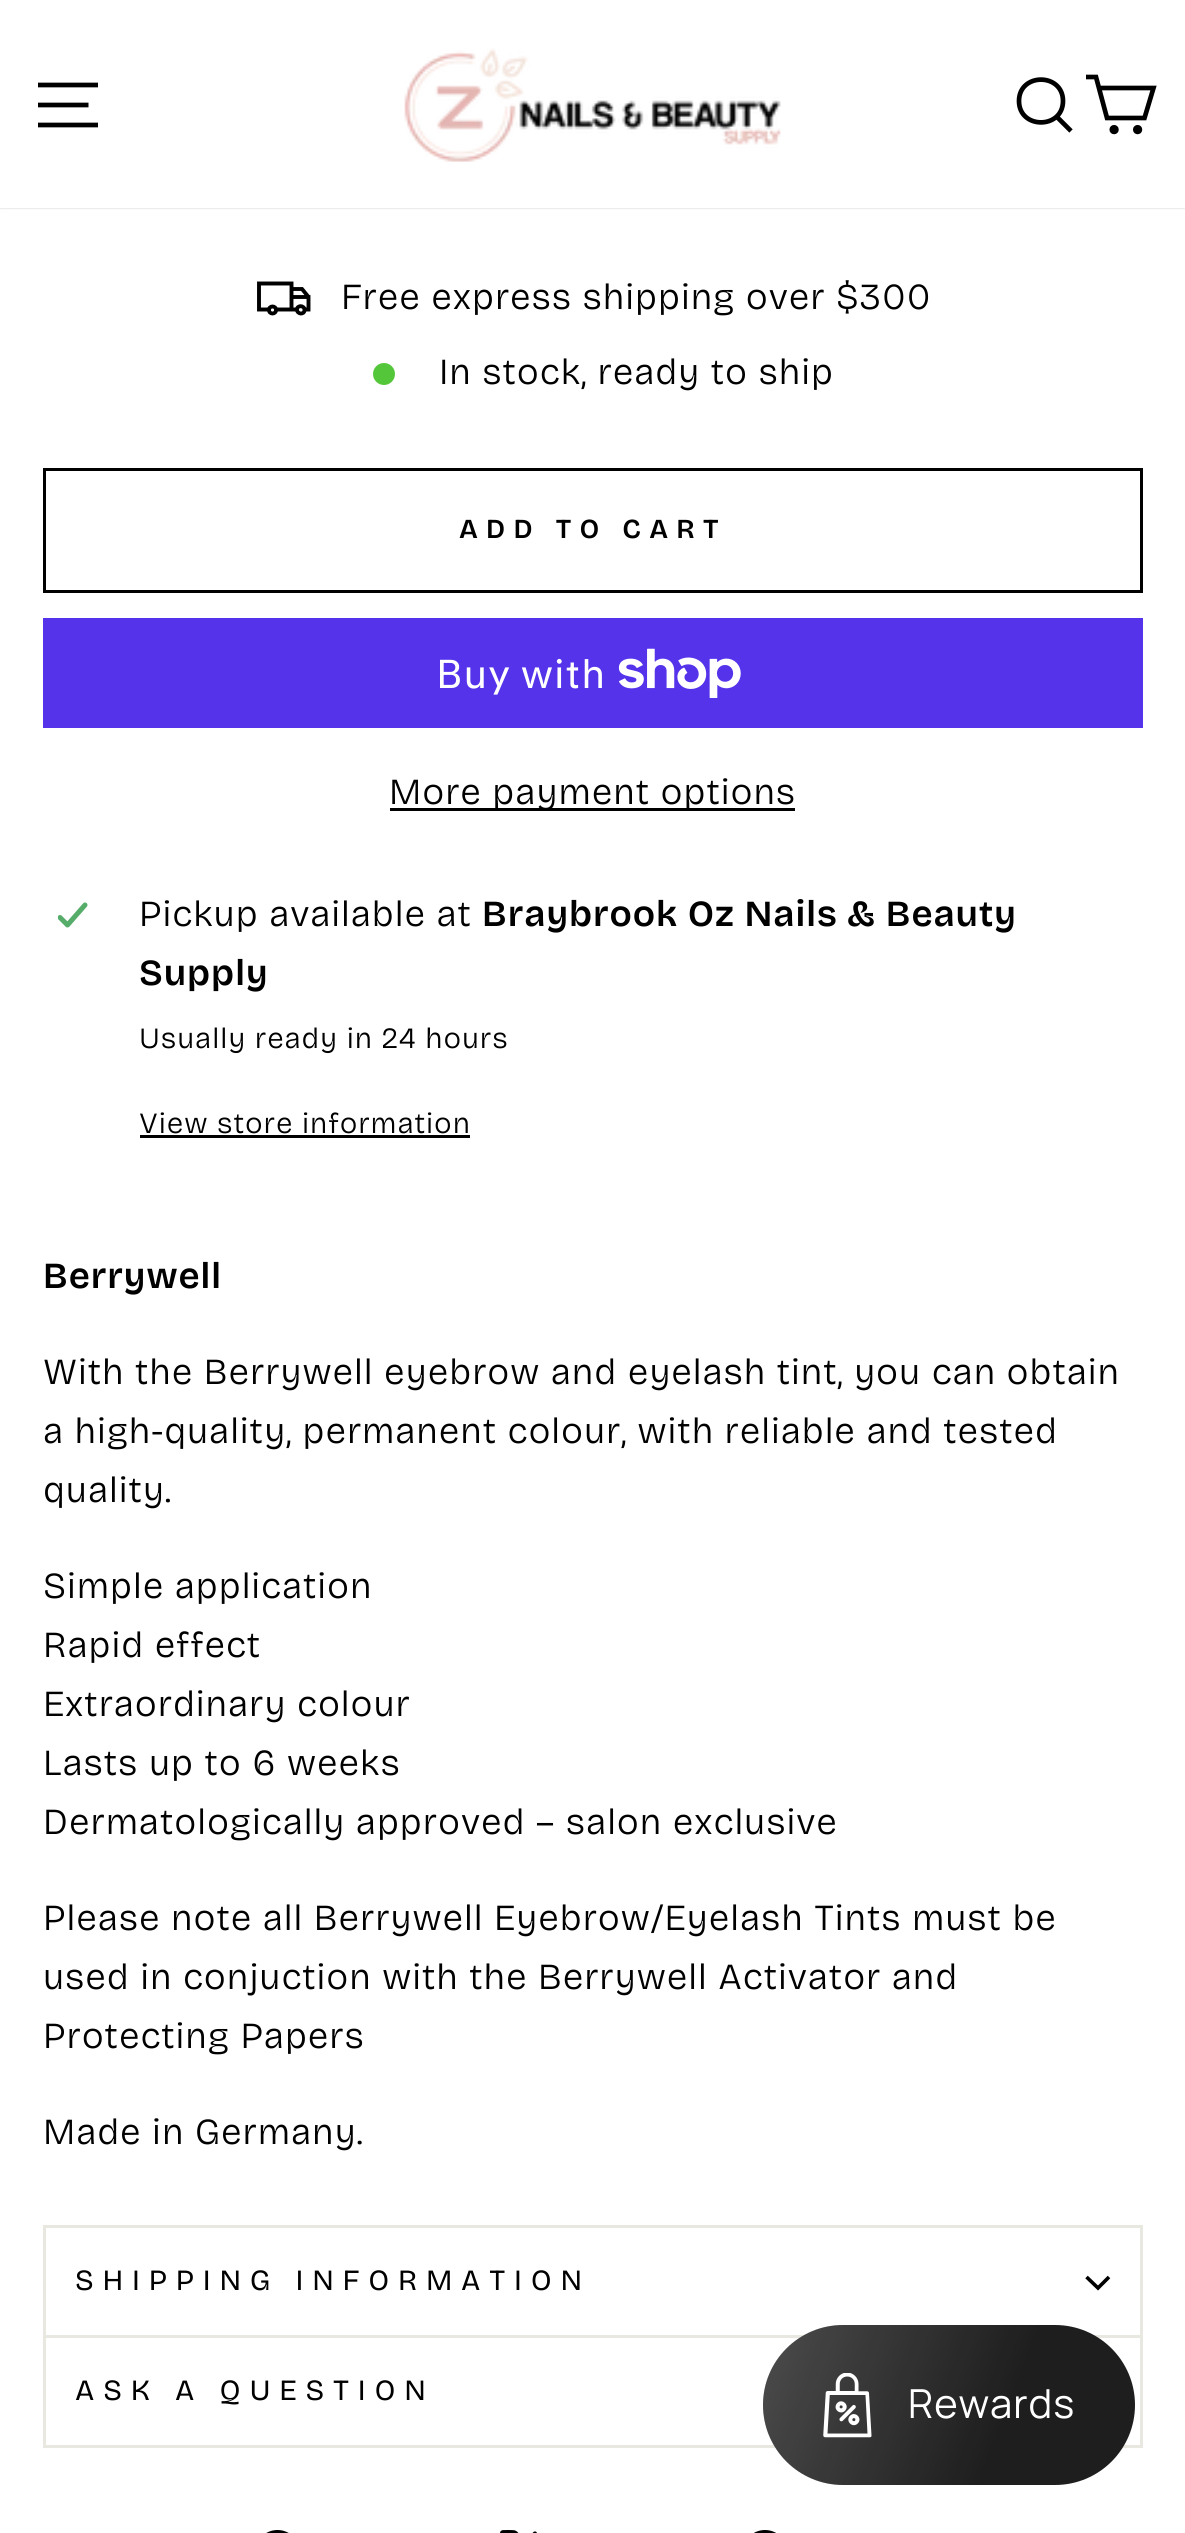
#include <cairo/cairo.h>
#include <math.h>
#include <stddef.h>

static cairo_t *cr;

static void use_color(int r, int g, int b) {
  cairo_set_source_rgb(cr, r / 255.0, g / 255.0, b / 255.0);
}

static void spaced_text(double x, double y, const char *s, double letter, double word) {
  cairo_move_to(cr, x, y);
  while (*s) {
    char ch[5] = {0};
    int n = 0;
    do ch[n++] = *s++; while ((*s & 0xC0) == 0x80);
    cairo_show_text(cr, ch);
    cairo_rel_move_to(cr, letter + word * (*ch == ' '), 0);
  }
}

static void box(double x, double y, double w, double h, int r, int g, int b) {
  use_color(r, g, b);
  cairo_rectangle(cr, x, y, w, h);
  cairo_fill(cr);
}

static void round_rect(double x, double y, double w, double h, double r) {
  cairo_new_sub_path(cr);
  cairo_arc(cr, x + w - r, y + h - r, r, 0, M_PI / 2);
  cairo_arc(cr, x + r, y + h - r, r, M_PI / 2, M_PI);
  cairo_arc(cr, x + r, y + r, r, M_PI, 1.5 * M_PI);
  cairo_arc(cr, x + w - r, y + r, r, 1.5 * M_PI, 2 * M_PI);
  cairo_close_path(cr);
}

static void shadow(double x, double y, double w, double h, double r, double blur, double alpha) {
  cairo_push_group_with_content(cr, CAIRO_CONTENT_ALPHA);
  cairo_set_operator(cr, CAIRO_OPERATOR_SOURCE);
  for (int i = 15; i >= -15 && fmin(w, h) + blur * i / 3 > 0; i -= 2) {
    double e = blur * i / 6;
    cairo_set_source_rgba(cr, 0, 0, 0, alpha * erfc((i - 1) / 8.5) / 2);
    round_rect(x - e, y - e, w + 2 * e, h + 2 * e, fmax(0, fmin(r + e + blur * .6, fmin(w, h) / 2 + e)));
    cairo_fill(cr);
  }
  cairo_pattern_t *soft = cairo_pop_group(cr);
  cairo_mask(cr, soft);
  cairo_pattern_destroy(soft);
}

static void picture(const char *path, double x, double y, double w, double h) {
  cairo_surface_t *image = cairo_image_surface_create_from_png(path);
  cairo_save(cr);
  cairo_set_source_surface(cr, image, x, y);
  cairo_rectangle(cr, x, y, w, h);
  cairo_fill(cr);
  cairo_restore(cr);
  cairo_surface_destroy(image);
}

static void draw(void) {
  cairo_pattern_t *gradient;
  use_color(255, 255, 255);
  cairo_paint(cr);
  use_color(0, 0, 0);
  shadow(0, 0, 1185, 208, 0, 1, 0.2);
  box(0, 0, 1185, 208, 255, 255, 255);
  cairo_new_path(cr);
  cairo_move_to(cr, 38, 85);
  cairo_line_to(cr, 98, 85);
  cairo_move_to(cr, 38, 105);
  cairo_line_to(cr, 88.5, 105);
  cairo_move_to(cr, 38, 125);
  cairo_line_to(cr, 98, 125);
  use_color(0, 0, 0);
  cairo_set_line_width(cr, 4.7);
  cairo_stroke(cr);
  picture("img_01.png", 404, 48, 377, 114);
  cairo_new_path(cr);
  cairo_move_to(cr, 1063, 101);
  cairo_curve_to(cr, 1063, 129.5, 1019, 129.5, 1019, 101);
  cairo_curve_to(cr, 1019, 72.5, 1063, 72.5, 1063, 101);
  cairo_close_path(cr);
  cairo_move_to(cr, 1071, 131);
  cairo_line_to(cr, 1056.5, 116.5);
  cairo_stroke(cr);
  cairo_new_path(cr);
  cairo_move_to(cr, 1099, 88);
  cairo_line_to(cr, 1153.5, 88);
  cairo_line_to(cr, 1144.5, 118);
  cairo_line_to(cr, 1107, 118);
  cairo_line_to(cr, 1096, 77);
  cairo_line_to(cr, 1086, 77);
  cairo_stroke(cr);
  cairo_arc(cr, 1114.1, 129.6, 2.3, 0, 2 * M_PI);
  cairo_stroke(cr);
  cairo_arc(cr, 1137.6, 129.6, 2.3, 0, 2 * M_PI);
  cairo_stroke(cr);
  cairo_new_path(cr);
  cairo_move_to(cr, 268.5, 309.5);
  cairo_line_to(cr, 259, 309.5);
  cairo_line_to(cr, 259, 283.5);
  cairo_line_to(cr, 291.5, 283.5);
  cairo_line_to(cr, 291.5, 309.5);
  cairo_line_to(cr, 276, 309.5);
  cairo_move_to(cr, 297, 309.5);
  cairo_line_to(cr, 291.5, 309.5);
  cairo_line_to(cr, 291.5, 297);
  cairo_line_to(cr, 308.5, 297);
  cairo_line_to(cr, 308.5, 309.5);
  cairo_line_to(cr, 304, 309.5);
  cairo_move_to(cr, 308.5, 297);
  cairo_line_to(cr, 302, 289);
  cairo_line_to(cr, 291.5, 289);
  cairo_set_line_width(cr, 3.9);
  cairo_stroke(cr);
  cairo_arc(cr, 272.5, 310, 3.5, 0, 2 * M_PI);
  cairo_stroke(cr);
  cairo_new_path(cr);
  cairo_move_to(cr, 297, 309.5);
  cairo_curve_to(cr, 297, 305, 304.5, 305, 304.5, 310);
  cairo_curve_to(cr, 304.5, 315, 297, 314.5, 297, 309.5);
  cairo_stroke(cr);
  use_color(84, 198, 58);
  cairo_arc(cr, 384, 374, 11, 0, 2 * M_PI);
  cairo_fill(cr);
  cairo_rectangle(cr, 44.5, 469.5, 1097, 122);
  use_color(0, 0, 0);
  cairo_set_line_width(cr, 3);
  cairo_stroke(cr);
  box(43, 618, 1100, 110, 84, 51, 235);
  picture("img_02.png", 618, 648, 123, 50);
  box(390, 808, 405, 3, 0, 0, 0);
  picture("img_03.png", 58, 902, 30, 26);
  box(140, 1135, 330, 3, 0, 0, 0);
  box(43, 2335, 1100, 3, 232, 232, 225);
  box(43, 2225, 1100, 3, 232, 232, 225);
  box(1140, 2225, 3, 110, 232, 232, 225);
  box(43, 2225, 3, 110, 232, 232, 225);
  cairo_new_path(cr);
  cairo_move_to(cr, 1086.5, 2277);
  cairo_line_to(cr, 1098, 2288);
  cairo_line_to(cr, 1109, 2277);
  use_color(0, 0, 0);
  cairo_set_line_width(cr, 3.6);
  cairo_stroke(cr);
  box(43, 2445, 1100, 3, 232, 232, 225);
  box(1140, 2338, 3, 107, 232, 232, 225);
  box(43, 2338, 3, 107, 232, 232, 225);
  picture("img_04.png", 266, 2530, 23, 3);
  picture("img_05.png", 500, 2530, 37, 3);
  picture("img_06.png", 754, 2530, 22, 3);
  use_color(31, 30, 31);
  round_rect(763, 2325, 372, 160, 80);
  cairo_fill(cr);
  gradient = cairo_pattern_create_linear(760, 2332, 1138, 2478);
  cairo_pattern_add_color_stop_rgba(gradient, 0.01, 1, 1, 1, 0.2);
  cairo_pattern_add_color_stop_rgba(gradient, 0.64, 1, 1, 1, 0);
  cairo_set_source(cr, gradient);
  cairo_pattern_destroy(gradient);
  round_rect(763, 2325, 372, 160, 80);
  cairo_fill(cr);
  picture("img_07.png", 823, 2373, 49, 65);
  cairo_select_font_face(cr, "Bricolage Grotesque Light", CAIRO_FONT_SLANT_NORMAL, CAIRO_FONT_WEIGHT_NORMAL);
  cairo_set_font_size(cr, 36.8);
  use_color(0, 0, 0);
  spaced_text(341, 309, "Free express shipping over $300", 0.92, 0);
  spaced_text(439, 384, "In stock, ready to ship", 0.92, 0);
  cairo_select_font_face(cr, "Bricolage Grotesque SemiBold", CAIRO_FONT_SLANT_NORMAL, CAIRO_FONT_WEIGHT_NORMAL);
  cairo_set_font_size(cr, 27.5);
  spaced_text(459, 538, "ADD TO CART", 8.25, 0);
  cairo_select_font_face(cr, "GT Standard", CAIRO_FONT_SLANT_NORMAL, CAIRO_FONT_WEIGHT_NORMAL);
  cairo_set_font_size(cr, 40);
  use_color(255, 255, 255);
  spaced_text(436, 688, "Buy with", 0.92, 0);
  cairo_select_font_face(cr, "Bricolage Grotesque Light", CAIRO_FONT_SLANT_NORMAL, CAIRO_FONT_WEIGHT_NORMAL);
  cairo_set_font_size(cr, 36.8);
  use_color(0, 0, 0);
  spaced_text(389, 804, "More payment options", 0.92, 0);
  spaced_text(139, 926, "Pickup available at", 0.92, 0);
  cairo_select_font_face(cr, "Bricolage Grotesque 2 SemiBold", CAIRO_FONT_SLANT_NORMAL, CAIRO_FONT_WEIGHT_NORMAL);
  spaced_text(482, 926, "Braybrook Oz Nails & Beauty", 0.92, 0);
  spaced_text(139, 985, "Supply", 0.92, 0);
  cairo_select_font_face(cr, "Bricolage Grotesque 2 Light", CAIRO_FONT_SLANT_NORMAL, CAIRO_FONT_WEIGHT_NORMAL);
  cairo_set_font_size(cr, 29.4);
  spaced_text(139, 1048, "Usually ready in 24 hours", 0.92, 0);
  spaced_text(139, 1133, "View store information", 0.92, 0);
  cairo_select_font_face(cr, "Bricolage Grotesque 2 SemiBold", CAIRO_FONT_SLANT_NORMAL, CAIRO_FONT_WEIGHT_NORMAL);
  cairo_set_font_size(cr, 36.8);
  spaced_text(43, 1288, "Berrywell", 0.92, 0);
  cairo_select_font_face(cr, "Bricolage Grotesque Light", CAIRO_FONT_SLANT_NORMAL, CAIRO_FONT_WEIGHT_NORMAL);
  spaced_text(43, 1384, "With the Berrywell eyebrow and eyelash tint, you can obtain", 0.92, 0);
  spaced_text(43, 1443, "a high-quality, permanent colour, with reliable and tested", 0.92, 0);
  spaced_text(43, 1502, "quality.", 0.92, 0);
  spaced_text(43, 1598, "Simple application", 0.92, 0);
  spaced_text(43, 1657, "Rapid effect", 0.92, 0);
  spaced_text(43, 1716, "Extraordinary colour", 0.92, 0);
  spaced_text(43, 1775, "Lasts up to 6 weeks", 0.92, 0);
  spaced_text(43, 1834, "Dermatologically approved – salon exclusive", 0.92, 0);
  spaced_text(43, 1930, "Please note all Berrywell Eyebrow/Eyelash Tints must be", 0.92, 0);
  spaced_text(43, 1989, "used in conjuction with the Berrywell Activator and", 0.92, 0);
  spaced_text(43, 2048, "Protecting Papers", 0.92, 0);
  spaced_text(43, 2144, "Made in Germany.", 0.92, 0);
  cairo_select_font_face(cr, "Bricolage Grotesque", CAIRO_FONT_SLANT_NORMAL, CAIRO_FONT_WEIGHT_NORMAL);
  cairo_set_font_size(cr, 29.4);
  spaced_text(75, 2290, "SHIPPING INFORMATION", 8.8, 0);
  spaced_text(75, 2400, "ASK A QUESTION", 8.8, 0);
  cairo_select_font_face(cr, "Manrope", CAIRO_FONT_SLANT_NORMAL, CAIRO_FONT_WEIGHT_NORMAL);
  cairo_set_font_size(cr, 40);
  use_color(255, 255, 255);
  spaced_text(908, 2418, "Rewards", 0.92, 0);
}

int main(void) {
  cairo_surface_t *surface = cairo_image_surface_create(CAIRO_FORMAT_RGB24, 1185, 2533);
  cr = cairo_create(surface);
  cairo_font_options_t *options = cairo_font_options_create();
  cairo_font_options_set_hint_metrics(options, CAIRO_HINT_METRICS_OFF);
  cairo_font_options_set_hint_style(options, CAIRO_HINT_STYLE_NONE);
  cairo_set_font_options(cr, options);
  cairo_set_miter_limit(cr, 4);
  draw();
  cairo_surface_write_to_png(surface, "out.png");
  cairo_font_options_destroy(options);
  cairo_destroy(cr);
  cairo_surface_destroy(surface);
  return 0;
}
